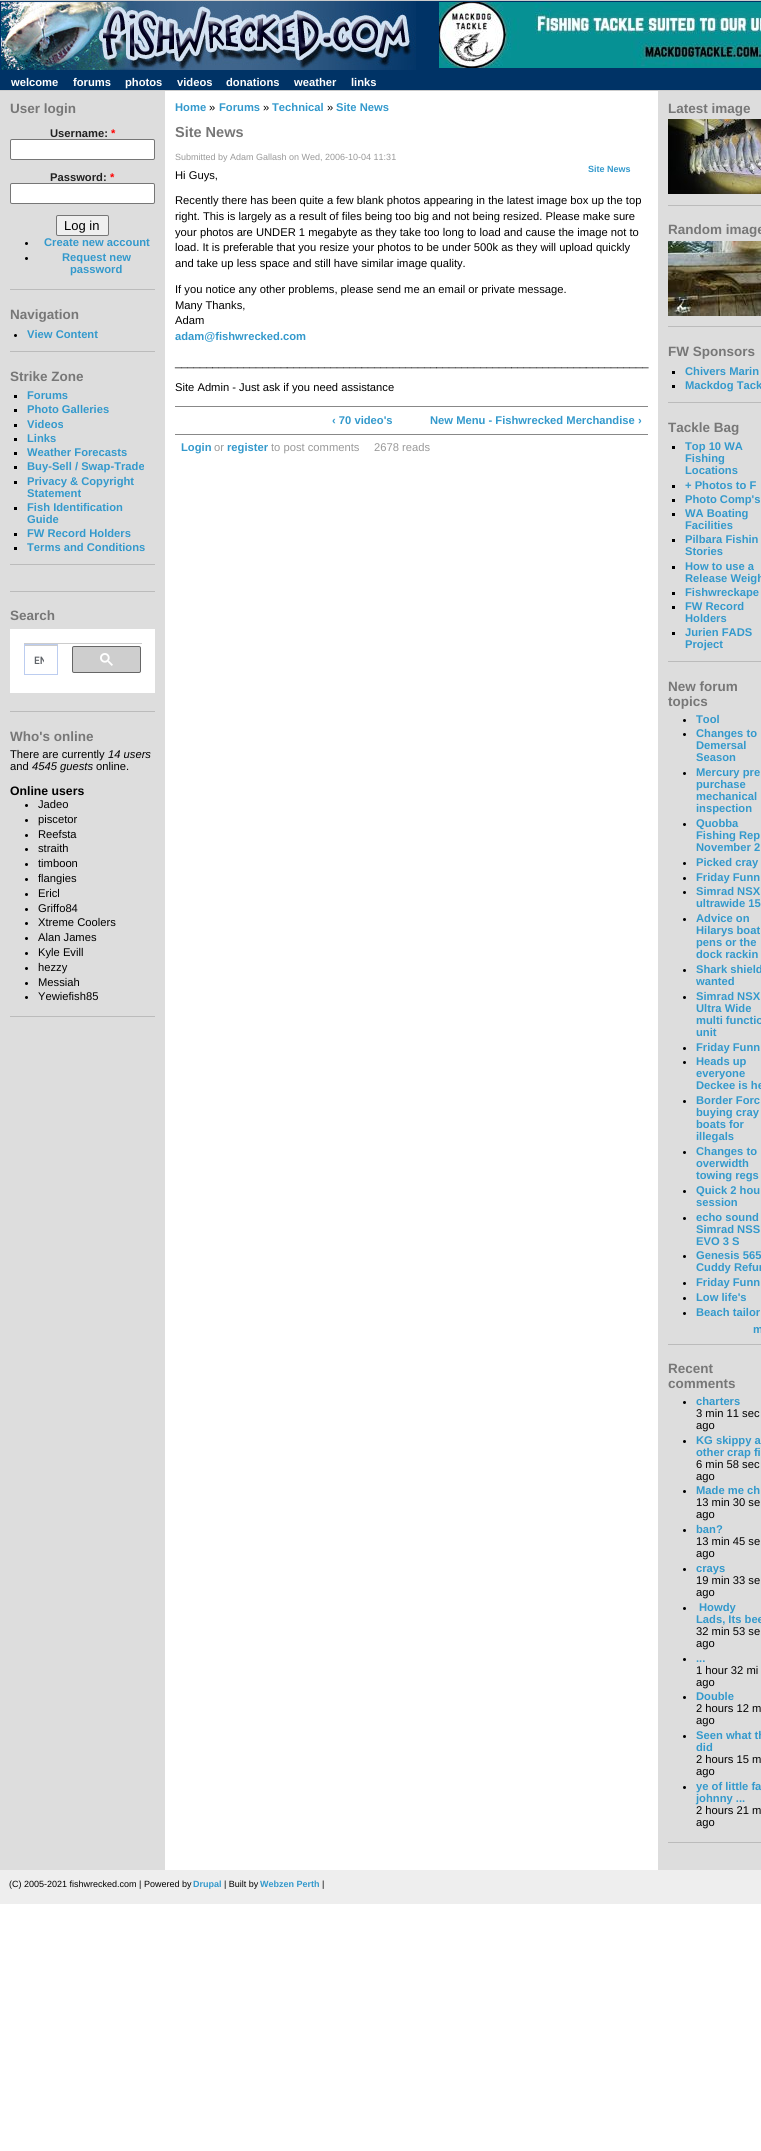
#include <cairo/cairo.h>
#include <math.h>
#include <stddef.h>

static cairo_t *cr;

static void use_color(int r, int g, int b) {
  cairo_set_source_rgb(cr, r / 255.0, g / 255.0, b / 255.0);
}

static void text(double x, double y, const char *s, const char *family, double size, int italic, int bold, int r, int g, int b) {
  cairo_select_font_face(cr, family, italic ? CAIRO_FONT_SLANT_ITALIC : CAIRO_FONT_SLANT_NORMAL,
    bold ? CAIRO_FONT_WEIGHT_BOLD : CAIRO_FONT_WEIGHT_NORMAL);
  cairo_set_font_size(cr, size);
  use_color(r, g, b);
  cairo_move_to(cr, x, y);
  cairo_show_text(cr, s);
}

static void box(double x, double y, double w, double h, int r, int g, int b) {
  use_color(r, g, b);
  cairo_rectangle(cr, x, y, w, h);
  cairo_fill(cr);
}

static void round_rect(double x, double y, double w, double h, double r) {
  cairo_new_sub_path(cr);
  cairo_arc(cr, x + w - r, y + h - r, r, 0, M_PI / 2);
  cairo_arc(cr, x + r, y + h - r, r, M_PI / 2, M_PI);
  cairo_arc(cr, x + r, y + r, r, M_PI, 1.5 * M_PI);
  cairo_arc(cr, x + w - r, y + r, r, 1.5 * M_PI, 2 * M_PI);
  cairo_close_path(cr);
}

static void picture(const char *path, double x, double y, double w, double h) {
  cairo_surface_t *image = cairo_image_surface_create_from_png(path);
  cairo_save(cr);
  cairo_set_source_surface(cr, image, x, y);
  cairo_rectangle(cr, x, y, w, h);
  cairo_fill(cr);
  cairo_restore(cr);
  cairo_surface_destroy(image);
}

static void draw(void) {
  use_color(255, 255, 255);
  cairo_paint(cr);
  box(0, 1, 761, 89, 0, 51, 102);
  box(0, 0, 761, 1, 204, 204, 204);
  picture("img_01.png", 0, 1, 416, 69);
  picture("img_02.png", 439, 2, 322, 66);
  box(0, 90, 761, 1, 204, 204, 204);
  box(0, 91, 165, 1779, 221, 221, 221);
  box(10, 289, 145, 1, 187, 187, 187);
  use_color(255, 255, 255);
  round_rect(10.5, 139.5, 144, 20, 1.5);
  cairo_fill_preserve(cr);
  use_color(118, 118, 118);
  cairo_set_line_width(cr, 1);
  cairo_stroke(cr);
  use_color(255, 255, 255);
  round_rect(10.5, 183.5, 144, 20, 1.5);
  cairo_fill_preserve(cr);
  use_color(118, 118, 118);
  cairo_stroke(cr);
  use_color(239, 239, 239);
  round_rect(56.5, 215.5, 52, 20, 1.5);
  cairo_fill_preserve(cr);
  use_color(118, 118, 118);
  cairo_stroke(cr);
  use_color(0, 0, 0);
  cairo_arc(cr, 26.5, 243.5, 1.5, 0, 2 * M_PI);
  cairo_fill(cr);
  cairo_arc(cr, 26.5, 258.5, 1.5, 0, 2 * M_PI);
  cairo_fill(cr);
  box(10, 351, 145, 1, 187, 187, 187);
  use_color(0, 0, 0);
  cairo_arc(cr, 15.5, 335.5, 1.5, 0, 2 * M_PI);
  cairo_fill(cr);
  box(10, 564, 145, 1, 187, 187, 187);
  box(14, 395, 3, 3, 0, 0, 0);
  box(14, 409, 3, 3, 0, 0, 0);
  box(14, 424, 3, 3, 0, 0, 0);
  box(14, 438, 3, 3, 0, 0, 0);
  box(14, 452, 3, 3, 0, 0, 0);
  box(14, 466, 3, 3, 0, 0, 0);
  box(14, 481, 3, 3, 0, 0, 0);
  box(14, 507, 3, 3, 0, 0, 0);
  box(14, 533, 3, 3, 0, 0, 0);
  box(14, 547, 3, 3, 0, 0, 0);
  box(10, 591, 145, 1, 187, 187, 187);
  box(10, 711, 145, 1, 187, 187, 187);
  box(10, 629, 145, 64, 255, 255, 255);
  box(24, 643, 118, 1, 204, 204, 204);
  cairo_rectangle(cr, 24.5, 644.5, 33, 30);
  use_color(188, 205, 240);
  cairo_stroke(cr);
  box(25, 645, 33, 1, 204, 204, 204);
  picture("img_03.png", 34, 656, 10, 8);
  use_color(206, 206, 206);
  round_rect(72.5, 646.5, 68, 26, 1.5);
  cairo_fill_preserve(cr);
  use_color(102, 102, 102);
  cairo_stroke(cr);
  picture("img_04.png", 100, 653, 13, 13);
  box(10, 1016, 145, 1, 187, 187, 187);
  use_color(0, 0, 0);
  cairo_arc(cr, 26.5, 805.5, 1.5, 0, 2 * M_PI);
  cairo_fill(cr);
  cairo_arc(cr, 26.5, 820.5, 1.5, 0, 2 * M_PI);
  cairo_fill(cr);
  cairo_arc(cr, 26.5, 835.5, 1.5, 0, 2 * M_PI);
  cairo_fill(cr);
  cairo_arc(cr, 26.5, 849.5, 1.5, 0, 2 * M_PI);
  cairo_fill(cr);
  cairo_arc(cr, 26.5, 864.5, 1.5, 0, 2 * M_PI);
  cairo_fill(cr);
  cairo_arc(cr, 26.5, 879.5, 1.5, 0, 2 * M_PI);
  cairo_fill(cr);
  cairo_arc(cr, 26.5, 894.5, 1.5, 0, 2 * M_PI);
  cairo_fill(cr);
  cairo_arc(cr, 26.5, 909.5, 1.5, 0, 2 * M_PI);
  cairo_fill(cr);
  cairo_arc(cr, 26.5, 923.5, 1.5, 0, 2 * M_PI);
  cairo_fill(cr);
  cairo_arc(cr, 26.5, 938.5, 1.5, 0, 2 * M_PI);
  cairo_fill(cr);
  cairo_arc(cr, 26.5, 953.5, 1.5, 0, 2 * M_PI);
  cairo_fill(cr);
  cairo_arc(cr, 26.5, 968.5, 1.5, 0, 2 * M_PI);
  cairo_fill(cr);
  cairo_arc(cr, 26.5, 983.5, 1.5, 0, 2 * M_PI);
  cairo_fill(cr);
  cairo_arc(cr, 26.5, 997.5, 1.5, 0, 2 * M_PI);
  cairo_fill(cr);
  box(175, 406, 473, 1, 136, 136, 136);
  box(175, 434, 473, 1, 136, 136, 136);
  box(658, 91, 103, 1779, 221, 221, 221);
  box(668, 205, 93, 1, 187, 187, 187);
  picture("img_05.png", 668, 119, 93, 75);
  box(668, 326, 93, 1, 187, 187, 187);
  picture("img_06.png", 668, 241, 93, 75);
  box(668, 402, 93, 1, 187, 187, 187);
  box(672, 371, 3, 3, 0, 0, 0);
  box(672, 385, 3, 3, 0, 0, 0);
  box(668, 661, 93, 1, 187, 187, 187);
  box(672, 446, 3, 3, 0, 0, 0);
  box(672, 485, 3, 3, 0, 0, 0);
  box(672, 499, 3, 3, 0, 0, 0);
  box(672, 513, 3, 3, 0, 0, 0);
  box(672, 539, 3, 3, 0, 0, 0);
  box(672, 566, 3, 3, 0, 0, 0);
  box(672, 592, 3, 3, 0, 0, 0);
  box(672, 606, 3, 3, 0, 0, 0);
  box(672, 632, 3, 3, 0, 0, 0);
  box(668, 1344, 93, 1, 187, 187, 187);
  use_color(0, 0, 0);
  cairo_arc(cr, 684.5, 720.5, 1.5, 0, 2 * M_PI);
  cairo_fill(cr);
  cairo_arc(cr, 684.5, 734.5, 1.5, 0, 2 * M_PI);
  cairo_fill(cr);
  cairo_arc(cr, 684.5, 773.5, 1.5, 0, 2 * M_PI);
  cairo_fill(cr);
  cairo_arc(cr, 684.5, 824.5, 1.5, 0, 2 * M_PI);
  cairo_fill(cr);
  cairo_arc(cr, 684.5, 863.5, 1.5, 0, 2 * M_PI);
  cairo_fill(cr);
  cairo_arc(cr, 684.5, 878.5, 1.5, 0, 2 * M_PI);
  cairo_fill(cr);
  cairo_arc(cr, 684.5, 892.5, 1.5, 0, 2 * M_PI);
  cairo_fill(cr);
  cairo_arc(cr, 684.5, 919.5, 1.5, 0, 2 * M_PI);
  cairo_fill(cr);
  cairo_arc(cr, 684.5, 970.5, 1.5, 0, 2 * M_PI);
  cairo_fill(cr);
  cairo_arc(cr, 684.5, 997.5, 1.5, 0, 2 * M_PI);
  cairo_fill(cr);
  cairo_arc(cr, 684.5, 1048.5, 1.5, 0, 2 * M_PI);
  cairo_fill(cr);
  cairo_arc(cr, 684.5, 1062.5, 1.5, 0, 2 * M_PI);
  cairo_fill(cr);
  cairo_arc(cr, 684.5, 1101.5, 1.5, 0, 2 * M_PI);
  cairo_fill(cr);
  cairo_arc(cr, 684.5, 1152.5, 1.5, 0, 2 * M_PI);
  cairo_fill(cr);
  cairo_arc(cr, 684.5, 1191.5, 1.5, 0, 2 * M_PI);
  cairo_fill(cr);
  cairo_arc(cr, 684.5, 1218.5, 1.5, 0, 2 * M_PI);
  cairo_fill(cr);
  cairo_arc(cr, 684.5, 1256.5, 1.5, 0, 2 * M_PI);
  cairo_fill(cr);
  cairo_arc(cr, 684.5, 1283.5, 1.5, 0, 2 * M_PI);
  cairo_fill(cr);
  cairo_arc(cr, 684.5, 1298.5, 1.5, 0, 2 * M_PI);
  cairo_fill(cr);
  cairo_arc(cr, 684.5, 1313.5, 1.5, 0, 2 * M_PI);
  cairo_fill(cr);
  box(668, 1842, 93, 1, 187, 187, 187);
  use_color(0, 0, 0);
  cairo_arc(cr, 684.5, 1402.5, 1.5, 0, 2 * M_PI);
  cairo_fill(cr);
  cairo_arc(cr, 684.5, 1441.5, 1.5, 0, 2 * M_PI);
  cairo_fill(cr);
  cairo_arc(cr, 684.5, 1491.5, 1.5, 0, 2 * M_PI);
  cairo_fill(cr);
  cairo_arc(cr, 684.5, 1530.5, 1.5, 0, 2 * M_PI);
  cairo_fill(cr);
  cairo_arc(cr, 684.5, 1569.5, 1.5, 0, 2 * M_PI);
  cairo_fill(cr);
  cairo_arc(cr, 684.5, 1608.5, 1.5, 0, 2 * M_PI);
  cairo_fill(cr);
  cairo_arc(cr, 684.5, 1659.5, 1.5, 0, 2 * M_PI);
  cairo_fill(cr);
  cairo_arc(cr, 684.5, 1697.5, 1.5, 0, 2 * M_PI);
  cairo_fill(cr);
  cairo_arc(cr, 684.5, 1736.5, 1.5, 0, 2 * M_PI);
  cairo_fill(cr);
  cairo_arc(cr, 684.5, 1787.5, 1.5, 0, 2 * M_PI);
  cairo_fill(cr);
  box(0, 1870, 761, 34, 238, 238, 238);
  text(11, 86, "welcome", "Liberation Sans", 11.2, 0, 1, 255, 255, 255);
  text(73, 86, "forums", "Liberation Sans", 11.2, 0, 1, 255, 255, 255);
  text(125, 86, "photos", "Liberation Sans", 11.2, 0, 1, 255, 255, 255);
  text(177, 86, "videos", "Liberation Sans", 11.2, 0, 1, 255, 255, 255);
  text(226, 86, "donations", "Liberation Sans", 11.2, 0, 1, 255, 255, 255);
  text(294, 86, "weather", "Liberation Sans", 11.2, 0, 1, 255, 255, 255);
  text(351, 86, "links", "Liberation Sans", 11.2, 0, 1, 255, 255, 255);
  text(10, 113, "User login", "Liberation Sans", 13.5, 0, 1, 119, 119, 119);
  text(50, 137, "Username:", "Liberation Sans", 11.2, 0, 1, 34, 34, 34);
  text(111, 137, "*", "Liberation Sans", 11.2, 0, 1, 255, 0, 0);
  text(50, 181, "Password:", "Liberation Sans", 11.2, 0, 1, 34, 34, 34);
  text(110, 181, "*", "Liberation Sans", 11.2, 0, 1, 255, 0, 0);
  text(64, 230, "Log in", "Liberation Sans", 13, 0, 0, 0, 0, 0);
  text(44, 246, "Create new account", "Liberation Sans", 11.2, 0, 1, 51, 153, 204);
  text(62, 261, "Request new", "Liberation Sans", 11.2, 0, 1, 51, 153, 204);
  text(70, 273, "password", "Liberation Sans", 11.2, 0, 1, 51, 153, 204);
  text(10, 319, "Navigation", "Liberation Sans", 13.5, 0, 1, 119, 119, 119);
  text(27, 338, "View Content", "Liberation Sans", 11.2, 0, 1, 51, 153, 204);
  text(10, 381, "Strike Zone", "Liberation Sans", 13.5, 0, 1, 119, 119, 119);
  text(27, 399, "Forums", "Liberation Sans", 11.2, 0, 1, 51, 153, 204);
  text(27, 413, "Photo Galleries", "Liberation Sans", 11.2, 0, 1, 51, 153, 204);
  text(27, 428, "Videos", "Liberation Sans", 11.2, 0, 1, 51, 153, 204);
  text(27, 442, "Links", "Liberation Sans", 11.2, 0, 1, 51, 153, 204);
  text(27, 456, "Weather Forecasts", "Liberation Sans", 11.2, 0, 1, 51, 153, 204);
  text(27, 470, "Buy-Sell / Swap-Trade", "Liberation Sans", 11.2, 0, 1, 51, 153, 204);
  text(27, 485, "Privacy & Copyright", "Liberation Sans", 11.2, 0, 1, 51, 153, 204);
  text(27, 497, "Statement", "Liberation Sans", 11.2, 0, 1, 51, 153, 204);
  text(27, 511, "Fish Identification", "Liberation Sans", 11.2, 0, 1, 51, 153, 204);
  text(27, 523, "Guide", "Liberation Sans", 11.2, 0, 1, 51, 153, 204);
  text(27, 537, "FW Record Holders", "Liberation Sans", 11.2, 0, 1, 51, 153, 204);
  text(27, 551, "Terms and Conditions", "Liberation Sans", 11.2, 0, 1, 51, 153, 204);
  text(10, 620, "Search", "Liberation Sans", 13.5, 0, 1, 119, 119, 119);
  text(10, 741, "Who's online", "Liberation Sans", 13.5, 0, 1, 119, 119, 119);
  text(10, 758, "There are currently", "Liberation Sans", 11.2, 0, 0, 0, 0, 0);
  text(108, 758, "14 users", "Liberation Sans", 11.2, 1, 0, 0, 0, 0);
  text(10, 770, "and", "Liberation Sans", 11.2, 0, 0, 0, 0, 0);
  text(32, 770, "4545 guests", "Liberation Sans", 11.2, 1, 0, 0, 0, 0);
  text(96, 770, "online.", "Liberation Sans", 11.2, 0, 0, 0, 0, 0);
  text(10, 795, "Online users", "Liberation Sans", 12.25, 0, 1, 0, 0, 0);
  text(38, 808, "Jadeo", "Liberation Sans", 11.2, 0, 0, 0, 0, 0);
  text(38, 823, "piscetor", "Liberation Sans", 11.2, 0, 0, 0, 0, 0);
  text(38, 838, "Reefsta", "Liberation Sans", 11.2, 0, 0, 0, 0, 0);
  text(38, 852, "straith", "Liberation Sans", 11.2, 0, 0, 0, 0, 0);
  text(38, 867, "timboon", "Liberation Sans", 11.2, 0, 0, 0, 0, 0);
  text(38, 882, "flangies", "Liberation Sans", 11.2, 0, 0, 0, 0, 0);
  text(38, 897, "Ericl", "Liberation Sans", 11.2, 0, 0, 0, 0, 0);
  text(38, 912, "Griffo84", "Liberation Sans", 11.2, 0, 0, 0, 0, 0);
  text(38, 926, "Xtreme Coolers", "Liberation Sans", 11.2, 0, 0, 0, 0, 0);
  text(38, 941, "Alan James", "Liberation Sans", 11.2, 0, 0, 0, 0, 0);
  text(38, 956, "Kyle Evill", "Liberation Sans", 11.2, 0, 0, 0, 0, 0);
  text(38, 971, "hezzy", "Liberation Sans", 11.2, 0, 0, 0, 0, 0);
  text(38, 986, "Messiah", "Liberation Sans", 11.2, 0, 0, 0, 0, 0);
  text(38, 1000, "Yewiefish85", "Liberation Sans", 11.2, 0, 0, 0, 0, 0);
  text(175, 111, "Home", "Liberation Sans", 11.2, 0, 1, 51, 153, 204);
  text(209, 111, "»", "Liberation Sans", 11.2, 0, 0, 0, 0, 0);
  text(219, 111, "Forums", "Liberation Sans", 11.2, 0, 1, 51, 153, 204);
  text(263, 111, "»", "Liberation Sans", 11.2, 0, 0, 0, 0, 0);
  text(272, 111, "Technical", "Liberation Sans", 11.2, 0, 1, 51, 153, 204);
  text(327, 111, "»", "Liberation Sans", 11.2, 0, 0, 0, 0, 0);
  text(336, 111, "Site News", "Liberation Sans", 11.2, 0, 1, 51, 153, 204);
  text(175, 137, "Site News", "Liberation Sans", 14.5, 0, 1, 119, 119, 119);
  text(175, 160, "Submitted by Adam Gallash on Wed, 2006-10-04 11:31", "Liberation Sans", 9, 0, 0, 153, 153, 153);
  text(588, 172, "Site News", "Liberation Sans", 9, 0, 1, 51, 153, 204);
  text(175, 179, "Hi Guys,", "Liberation Sans", 11.2, 0, 0, 0, 0, 0);
  text(175, 204, "Recently there has been quite a few blank photos appearing in the latest image box up the top", "Liberation Sans", 11.2, 0, 0, 0, 0, 0);
  text(175, 220, "right. This is largely as a result of files being too big and not being resized. Please make sure", "Liberation Sans", 11.2, 0, 0, 0, 0, 0);
  text(175, 236, "your photos are UNDER 1 megabyte as they take too long to load and cause the image not to", "Liberation Sans", 11.2, 0, 0, 0, 0, 0);
  text(175, 251, "load. It is preferable that you resize your photos to be under 500k as they will upload quickly", "Liberation Sans", 11.2, 0, 0, 0, 0, 0);
  text(175, 267, "and take up less space and still have similar image quality.", "Liberation Sans", 11.2, 0, 0, 0, 0, 0);
  text(175, 293, "If you notice any other problems, please send me an email or private message.", "Liberation Sans", 11.2, 0, 0, 0, 0, 0);
  text(175, 309, "Many Thanks,", "Liberation Sans", 11.2, 0, 0, 0, 0, 0);
  text(175, 324, "Adam", "Liberation Sans", 11.2, 0, 0, 0, 0, 0);
  text(175, 340, "adam@fishwrecked.com", "Liberation Sans", 11.2, 0, 1, 51, 153, 204);
  text(175, 366, "____________________________________________________________________________", "Liberation Sans", 11.2, 0, 0, 0, 0, 0);
  text(175, 391, "Site Admin - Just ask if you need assistance", "Liberation Sans", 11.2, 0, 0, 0, 0, 0);
  text(332, 424, "‹ 70 video's", "Liberation Sans", 11.2, 0, 1, 51, 153, 204);
  text(430, 424, "New Menu - Fishwrecked Merchandise ›", "Liberation Sans", 11.2, 0, 1, 51, 153, 204);
  text(181, 451, "Login", "Liberation Sans", 11.2, 0, 1, 51, 153, 204);
  text(214, 451, "or", "Liberation Sans", 11.2, 0, 0, 153, 153, 153);
  text(227, 451, "register", "Liberation Sans", 11.2, 0, 1, 51, 153, 204);
  text(271, 451, "to post comments", "Liberation Sans", 11.2, 0, 0, 153, 153, 153);
  text(374, 451, "2678 reads", "Liberation Sans", 11.2, 0, 0, 153, 153, 153);
  text(668, 113, "Latest image", "Liberation Sans", 13.5, 0, 1, 119, 119, 119);
  text(668, 234, "Random image", "Liberation Sans", 13.5, 0, 1, 119, 119, 119);
  text(668, 356, "FW Sponsors", "Liberation Sans", 13.5, 0, 1, 119, 119, 119);
  text(685, 375, "Chivers Marin", "Liberation Sans", 11.2, 0, 1, 51, 153, 204);
  text(685, 389, "Mackdog Tack", "Liberation Sans", 11.2, 0, 1, 51, 153, 204);
  text(668, 432, "Tackle Bag", "Liberation Sans", 13.5, 0, 1, 119, 119, 119);
  text(685, 450, "Top 10 WA", "Liberation Sans", 11.2, 0, 1, 51, 153, 204);
  text(685, 462, "Fishing", "Liberation Sans", 11.2, 0, 1, 51, 153, 204);
  text(685, 474, "Locations", "Liberation Sans", 11.2, 0, 1, 51, 153, 204);
  text(685, 489, "+ Photos to F", "Liberation Sans", 11.2, 0, 1, 51, 153, 204);
  text(685, 503, "Photo Comp's", "Liberation Sans", 11.2, 0, 1, 51, 153, 204);
  text(685, 517, "WA Boating", "Liberation Sans", 11.2, 0, 1, 51, 153, 204);
  text(685, 529, "Facilities", "Liberation Sans", 11.2, 0, 1, 51, 153, 204);
  text(685, 543, "Pilbara Fishin", "Liberation Sans", 11.2, 0, 1, 51, 153, 204);
  text(685, 555, "Stories", "Liberation Sans", 11.2, 0, 1, 51, 153, 204);
  text(685, 570, "How to use a", "Liberation Sans", 11.2, 0, 1, 51, 153, 204);
  text(685, 582, "Release Weigh", "Liberation Sans", 11.2, 0, 1, 51, 153, 204);
  text(685, 596, "Fishwreckape", "Liberation Sans", 11.2, 0, 1, 51, 153, 204);
  text(685, 610, "FW Record", "Liberation Sans", 11.2, 0, 1, 51, 153, 204);
  text(685, 622, "Holders", "Liberation Sans", 11.2, 0, 1, 51, 153, 204);
  text(685, 636, "Jurien FADS", "Liberation Sans", 11.2, 0, 1, 51, 153, 204);
  text(685, 648, "Project", "Liberation Sans", 11.2, 0, 1, 51, 153, 204);
  text(668, 691, "New forum", "Liberation Sans", 13.5, 0, 1, 119, 119, 119);
  text(668, 706, "topics", "Liberation Sans", 13.5, 0, 1, 119, 119, 119);
  text(696, 723, "Tool", "Liberation Sans", 11.2, 0, 1, 51, 153, 204);
  text(696, 737, "Changes to", "Liberation Sans", 11.2, 0, 1, 51, 153, 204);
  text(696, 749, "Demersal", "Liberation Sans", 11.2, 0, 1, 51, 153, 204);
  text(696, 761, "Season", "Liberation Sans", 11.2, 0, 1, 51, 153, 204);
  text(696, 776, "Mercury pre", "Liberation Sans", 11.2, 0, 1, 51, 153, 204);
  text(696, 788, "purchase", "Liberation Sans", 11.2, 0, 1, 51, 153, 204);
  text(696, 800, "mechanical", "Liberation Sans", 11.2, 0, 1, 51, 153, 204);
  text(696, 812, "inspection", "Liberation Sans", 11.2, 0, 1, 51, 153, 204);
  text(696, 827, "Quobba", "Liberation Sans", 11.2, 0, 1, 51, 153, 204);
  text(696, 839, "Fishing Rep", "Liberation Sans", 11.2, 0, 1, 51, 153, 204);
  text(696, 851, "November 2", "Liberation Sans", 11.2, 0, 1, 51, 153, 204);
  text(696, 866, "Picked cray", "Liberation Sans", 11.2, 0, 1, 51, 153, 204);
  text(696, 881, "Friday Funn", "Liberation Sans", 11.2, 0, 1, 51, 153, 204);
  text(696, 895, "Simrad NSX", "Liberation Sans", 11.2, 0, 1, 51, 153, 204);
  text(696, 907, "ultrawide 15", "Liberation Sans", 11.2, 0, 1, 51, 153, 204);
  text(696, 922, "Advice on", "Liberation Sans", 11.2, 0, 1, 51, 153, 204);
  text(696, 934, "Hilarys boat", "Liberation Sans", 11.2, 0, 1, 51, 153, 204);
  text(696, 946, "pens or the", "Liberation Sans", 11.2, 0, 1, 51, 153, 204);
  text(696, 958, "dock rackin", "Liberation Sans", 11.2, 0, 1, 51, 153, 204);
  text(696, 973, "Shark shield", "Liberation Sans", 11.2, 0, 1, 51, 153, 204);
  text(696, 985, "wanted", "Liberation Sans", 11.2, 0, 1, 51, 153, 204);
  text(696, 1000, "Simrad NSX", "Liberation Sans", 11.2, 0, 1, 51, 153, 204);
  text(696, 1012, "Ultra Wide", "Liberation Sans", 11.2, 0, 1, 51, 153, 204);
  text(696, 1024, "multi functio", "Liberation Sans", 11.2, 0, 1, 51, 153, 204);
  text(696, 1036, "unit", "Liberation Sans", 11.2, 0, 1, 51, 153, 204);
  text(696, 1051, "Friday Funn", "Liberation Sans", 11.2, 0, 1, 51, 153, 204);
  text(696, 1065, "Heads up", "Liberation Sans", 11.2, 0, 1, 51, 153, 204);
  text(696, 1077, "everyone", "Liberation Sans", 11.2, 0, 1, 51, 153, 204);
  text(696, 1089, "Deckee is he", "Liberation Sans", 11.2, 0, 1, 51, 153, 204);
  text(696, 1104, "Border Forc", "Liberation Sans", 11.2, 0, 1, 51, 153, 204);
  text(696, 1116, "buying cray", "Liberation Sans", 11.2, 0, 1, 51, 153, 204);
  text(696, 1128, "boats for", "Liberation Sans", 11.2, 0, 1, 51, 153, 204);
  text(696, 1140, "illegals", "Liberation Sans", 11.2, 0, 1, 51, 153, 204);
  text(696, 1155, "Changes to", "Liberation Sans", 11.2, 0, 1, 51, 153, 204);
  text(696, 1167, "overwidth", "Liberation Sans", 11.2, 0, 1, 51, 153, 204);
  text(696, 1179, "towing regs", "Liberation Sans", 11.2, 0, 1, 51, 153, 204);
  text(696, 1194, "Quick 2 hou", "Liberation Sans", 11.2, 0, 1, 51, 153, 204);
  text(696, 1206, "session", "Liberation Sans", 11.2, 0, 1, 51, 153, 204);
  text(696, 1221, "echo sound", "Liberation Sans", 11.2, 0, 1, 51, 153, 204);
  text(696, 1233, "Simrad NSS", "Liberation Sans", 11.2, 0, 1, 51, 153, 204);
  text(696, 1245, "EVO 3 S", "Liberation Sans", 11.2, 0, 1, 51, 153, 204);
  text(696, 1259, "Genesis 565", "Liberation Sans", 11.2, 0, 1, 51, 153, 204);
  text(696, 1271, "Cuddy Refur", "Liberation Sans", 11.2, 0, 1, 51, 153, 204);
  text(696, 1286, "Friday Funn", "Liberation Sans", 11.2, 0, 1, 51, 153, 204);
  text(696, 1301, "Low life's", "Liberation Sans", 11.2, 0, 1, 51, 153, 204);
  text(696, 1316, "Beach tailor", "Liberation Sans", 11.2, 0, 1, 51, 153, 204);
  text(753, 1333, "m", "Liberation Sans", 11.2, 0, 1, 51, 153, 204);
  text(668, 1373, "Recent", "Liberation Sans", 13.5, 0, 1, 119, 119, 119);
  text(668, 1388, "comments", "Liberation Sans", 13.5, 0, 1, 119, 119, 119);
  text(696, 1405, "charters", "Liberation Sans", 11.2, 0, 1, 51, 153, 204);
  text(696, 1417, "3 min 11 sec", "Liberation Sans", 11.2, 0, 0, 0, 0, 0);
  text(696, 1429, "ago", "Liberation Sans", 11.2, 0, 0, 0, 0, 0);
  text(696, 1444, "KG skippy a", "Liberation Sans", 11.2, 0, 1, 51, 153, 204);
  text(696, 1456, "other crap fi", "Liberation Sans", 11.2, 0, 1, 51, 153, 204);
  text(696, 1468, "6 min 58 sec", "Liberation Sans", 11.2, 0, 0, 0, 0, 0);
  text(696, 1480, "ago", "Liberation Sans", 11.2, 0, 0, 0, 0, 0);
  text(696, 1494, "Made me ch", "Liberation Sans", 11.2, 0, 1, 51, 153, 204);
  text(696, 1506, "13 min 30 se", "Liberation Sans", 11.2, 0, 0, 0, 0, 0);
  text(696, 1518, "ago", "Liberation Sans", 11.2, 0, 0, 0, 0, 0);
  text(696, 1533, "ban?", "Liberation Sans", 11.2, 0, 1, 51, 153, 204);
  text(696, 1545, "13 min 45 se", "Liberation Sans", 11.2, 0, 0, 0, 0, 0);
  text(696, 1557, "ago", "Liberation Sans", 11.2, 0, 0, 0, 0, 0);
  text(696, 1572, "crays", "Liberation Sans", 11.2, 0, 1, 51, 153, 204);
  text(696, 1584, "19 min 33 se", "Liberation Sans", 11.2, 0, 0, 0, 0, 0);
  text(696, 1596, "ago", "Liberation Sans", 11.2, 0, 0, 0, 0, 0);
  text(699, 1611, "Howdy", "Liberation Sans", 11.2, 0, 1, 51, 153, 204);
  text(696, 1623, "Lads, Its bee", "Liberation Sans", 11.2, 0, 1, 51, 153, 204);
  text(696, 1635, "32 min 53 se", "Liberation Sans", 11.2, 0, 0, 0, 0, 0);
  text(696, 1647, "ago", "Liberation Sans", 11.2, 0, 0, 0, 0, 0);
  text(696, 1662, "...", "Liberation Sans", 11.2, 0, 1, 51, 153, 204);
  text(696, 1674, "1 hour 32 mi", "Liberation Sans", 11.2, 0, 0, 0, 0, 0);
  text(696, 1686, "ago", "Liberation Sans", 11.2, 0, 0, 0, 0, 0);
  text(696, 1700, "Double", "Liberation Sans", 11.2, 0, 1, 51, 153, 204);
  text(696, 1712, "2 hours 12 m", "Liberation Sans", 11.2, 0, 0, 0, 0, 0);
  text(696, 1724, "ago", "Liberation Sans", 11.2, 0, 0, 0, 0, 0);
  text(696, 1739, "Seen what th", "Liberation Sans", 11.2, 0, 1, 51, 153, 204);
  text(696, 1751, "did", "Liberation Sans", 11.2, 0, 1, 51, 153, 204);
  text(696, 1763, "2 hours 15 m", "Liberation Sans", 11.2, 0, 0, 0, 0, 0);
  text(696, 1775, "ago", "Liberation Sans", 11.2, 0, 0, 0, 0, 0);
  text(696, 1790, "ye of little fa", "Liberation Sans", 11.2, 0, 1, 51, 153, 204);
  text(696, 1802, "johnny ...", "Liberation Sans", 11.2, 0, 1, 51, 153, 204);
  text(696, 1814, "2 hours 21 m", "Liberation Sans", 11.2, 0, 0, 0, 0, 0);
  text(696, 1826, "ago", "Liberation Sans", 11.2, 0, 0, 0, 0, 0);
  text(9, 1887, "(C) 2005-2021 fishwrecked.com | Powered by", "Liberation Sans", 9, 0, 0, 0, 0, 0);
  text(193, 1887, "Drupal", "Liberation Sans", 9, 0, 1, 51, 153, 204);
  text(224, 1887, "| Built by", "Liberation Sans", 9, 0, 0, 0, 0, 0);
  text(260, 1887, "Webzen Perth", "Liberation Sans", 9, 0, 1, 51, 153, 204);
  text(322, 1887, "|", "Liberation Sans", 9, 0, 0, 0, 0, 0);
}

int main(void) {
  cairo_surface_t *surface = cairo_image_surface_create(CAIRO_FORMAT_RGB24, 761, 2151);
  cr = cairo_create(surface);
  cairo_font_options_t *options = cairo_font_options_create();
  cairo_font_options_set_hint_metrics(options, CAIRO_HINT_METRICS_OFF);
  cairo_font_options_set_hint_style(options, CAIRO_HINT_STYLE_NONE);
  cairo_set_font_options(cr, options);
  cairo_set_miter_limit(cr, 4);
  draw();
  cairo_surface_write_to_png(surface, "out.png");
  cairo_font_options_destroy(options);
  cairo_destroy(cr);
  cairo_surface_destroy(surface);
  return 0;
}
